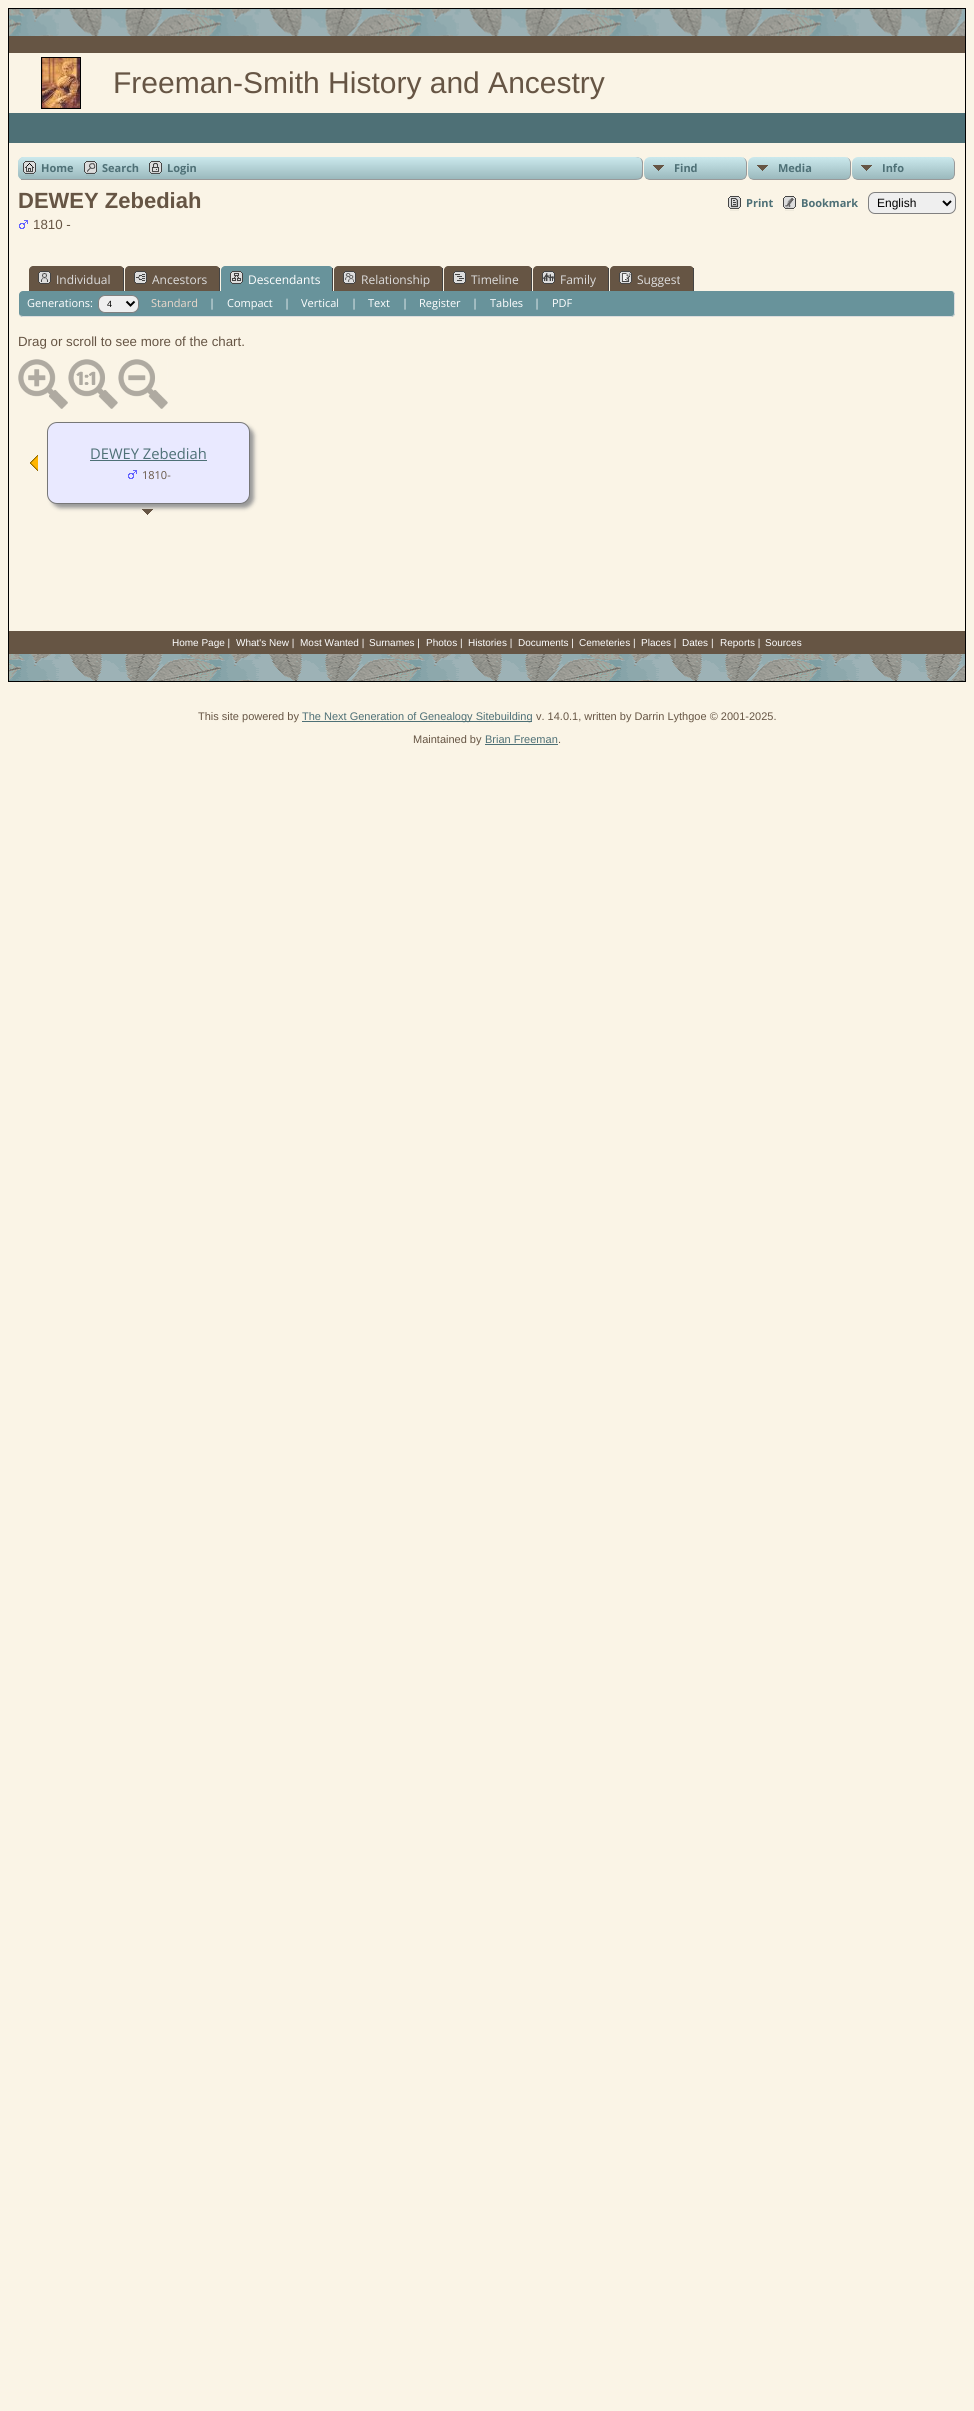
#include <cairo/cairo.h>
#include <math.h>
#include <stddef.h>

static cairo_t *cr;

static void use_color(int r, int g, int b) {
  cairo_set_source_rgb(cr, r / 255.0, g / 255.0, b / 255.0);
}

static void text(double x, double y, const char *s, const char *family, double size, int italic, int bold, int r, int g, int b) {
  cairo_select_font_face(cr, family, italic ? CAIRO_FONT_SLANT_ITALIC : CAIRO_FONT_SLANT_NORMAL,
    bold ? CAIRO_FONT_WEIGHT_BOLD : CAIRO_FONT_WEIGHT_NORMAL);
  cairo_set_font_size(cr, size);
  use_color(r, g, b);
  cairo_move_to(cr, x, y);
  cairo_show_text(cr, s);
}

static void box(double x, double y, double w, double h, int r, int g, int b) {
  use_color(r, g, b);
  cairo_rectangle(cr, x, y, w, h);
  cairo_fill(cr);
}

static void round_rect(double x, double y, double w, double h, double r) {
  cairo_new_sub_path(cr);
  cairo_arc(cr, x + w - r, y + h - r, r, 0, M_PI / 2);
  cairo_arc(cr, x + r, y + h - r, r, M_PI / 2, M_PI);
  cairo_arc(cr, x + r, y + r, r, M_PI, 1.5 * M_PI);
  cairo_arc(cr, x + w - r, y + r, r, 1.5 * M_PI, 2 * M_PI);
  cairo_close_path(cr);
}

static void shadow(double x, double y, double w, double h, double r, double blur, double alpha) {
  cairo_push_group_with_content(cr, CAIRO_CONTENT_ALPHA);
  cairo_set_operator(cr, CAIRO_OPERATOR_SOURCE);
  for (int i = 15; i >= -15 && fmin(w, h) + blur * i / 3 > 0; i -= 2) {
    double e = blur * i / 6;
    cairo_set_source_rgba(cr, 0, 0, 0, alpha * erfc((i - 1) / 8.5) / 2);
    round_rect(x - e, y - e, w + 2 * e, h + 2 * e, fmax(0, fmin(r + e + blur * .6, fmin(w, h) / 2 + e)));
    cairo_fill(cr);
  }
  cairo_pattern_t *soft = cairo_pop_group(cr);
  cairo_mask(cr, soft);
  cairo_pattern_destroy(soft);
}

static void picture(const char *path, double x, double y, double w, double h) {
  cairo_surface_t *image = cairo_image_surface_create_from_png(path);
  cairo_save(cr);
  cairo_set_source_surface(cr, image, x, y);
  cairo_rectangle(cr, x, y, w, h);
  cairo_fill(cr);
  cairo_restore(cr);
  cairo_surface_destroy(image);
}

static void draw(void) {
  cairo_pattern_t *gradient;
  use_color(250, 244, 230);
  cairo_paint(cr);
  box(8, 8, 958, 1, 0, 0, 0);
  box(965, 8, 1, 674, 0, 0, 0);
  box(8, 681, 958, 1, 0, 0, 0);
  box(8, 8, 1, 674, 0, 0, 0);
  picture("img_01.png", 9, 9, 956, 27);
  box(9, 36, 956, 17, 102, 85, 68);
  cairo_rectangle(cr, 41.5, 57.5, 39, 51);
  use_color(0, 0, 0);
  cairo_set_line_width(cr, 1);
  cairo_stroke(cr);
  picture("img_02.png", 42, 58, 38, 50);
  box(9, 113, 956, 30, 78, 112, 118);
  use_color(180, 209, 214);
  round_rect(18, 157, 938, 23, 6);
  cairo_fill(cr);
  cairo_save(cr);
  round_rect(18, 157, 938, 23, 6);
  cairo_clip(cr);
  gradient = cairo_pattern_create_linear(487, 157, 487, 179);
  cairo_pattern_add_color_stop_rgba(gradient, 0, 0.796, 0.914, 0.929, 1);
  cairo_pattern_add_color_stop_rgba(gradient, 1, 0.608, 0.725, 0.741, 1);
  cairo_set_source(cr, gradient);
  cairo_pattern_destroy(gradient);
  cairo_new_path(cr);
  cairo_move_to(cr, 24, 157);
  cairo_line_to(cr, 950, 157);
  cairo_curve_to(cr, 953.5, 157, 956, 159.5, 956, 163);
  cairo_line_to(cr, 956, 179);
  cairo_line_to(cr, 18, 179);
  cairo_line_to(cr, 18, 163);
  cairo_curve_to(cr, 18, 159.5, 20.5, 157, 24, 157);
  cairo_close_path(cr);
  cairo_fill(cr);
  cairo_restore(cr);
  box(21, 179, 611, 1, 153, 153, 153);
  picture("img_03.png", 23, 161, 13, 15);
  picture("img_04.png", 84, 161, 13, 15);
  picture("img_05.png", 149, 161, 13, 15);
  box(637, 157, 319, 23, 250, 244, 230);
  cairo_save(cr);
  cairo_new_path(cr);
  cairo_move_to(cr, 632, 157);
  cairo_line_to(cr, 637, 157);
  cairo_curve_to(cr, 640.5, 157, 643, 159.5, 643, 163);
  cairo_line_to(cr, 643, 174);
  cairo_curve_to(cr, 643, 177.5, 640.5, 180, 637, 180);
  cairo_line_to(cr, 632, 180);
  cairo_close_path(cr);
  cairo_clip(cr);
  gradient = cairo_pattern_create_linear(637, 157, 637, 179);
  cairo_pattern_add_color_stop_rgba(gradient, 0, 0.796, 0.914, 0.929, 1);
  cairo_pattern_add_color_stop_rgba(gradient, 1, 0.608, 0.725, 0.741, 1);
  cairo_set_source(cr, gradient);
  cairo_pattern_destroy(gradient);
  cairo_rectangle(cr, 632, 157, 11, 22);
  cairo_fill(cr);
  gradient = cairo_pattern_create_linear(637, 179, 637, 201);
  cairo_pattern_add_color_stop_rgba(gradient, 0, 0.796, 0.914, 0.929, 1);
  cairo_pattern_add_color_stop_rgba(gradient, 1, 0.608, 0.725, 0.741, 1);
  cairo_set_source(cr, gradient);
  cairo_pattern_destroy(gradient);
  cairo_rectangle(cr, 632, 179, 11, 1);
  cairo_fill(cr);
  cairo_restore(cr);
  use_color(153, 153, 153);
  cairo_set_fill_rule(cr, CAIRO_FILL_RULE_EVEN_ODD);
  cairo_new_path(cr);
  cairo_move_to(cr, 632, 157);
  cairo_curve_to(cr, 636, 157, 642, 156.5, 643, 162);
  cairo_line_to(cr, 643, 175);
  cairo_curve_to(cr, 642, 180.5, 636, 180, 632, 180);
  cairo_close_path(cr);
  cairo_move_to(cr, 632, 157);
  cairo_line_to(cr, 638, 157);
  cairo_curve_to(cr, 643, 158.5, 642, 165, 642, 168.5);
  cairo_curve_to(cr, 642, 178.5, 641.5, 179, 632, 179);
  cairo_close_path(cr);
  cairo_fill(cr);
  picture("img_06.png", 644, 157, 102, 22);
  cairo_new_path(cr);
  cairo_move_to(cr, 650, 157);
  cairo_line_to(cr, 741, 157);
  cairo_curve_to(cr, 744, 157, 747, 160, 747, 163);
  cairo_line_to(cr, 747, 174);
  cairo_curve_to(cr, 747, 177, 744, 180, 741, 180);
  cairo_line_to(cr, 650, 180);
  cairo_curve_to(cr, 647, 180, 644, 177, 644, 174);
  cairo_line_to(cr, 644, 163);
  cairo_curve_to(cr, 644, 160, 647, 157, 650, 157);
  cairo_close_path(cr);
  cairo_move_to(cr, 650, 157);
  cairo_line_to(cr, 741, 157);
  cairo_curve_to(cr, 744, 157, 746, 160, 746, 163);
  cairo_line_to(cr, 746, 174);
  cairo_curve_to(cr, 746, 177, 744, 179, 741, 179);
  cairo_line_to(cr, 650, 179);
  cairo_curve_to(cr, 647, 179, 644, 177, 644, 174);
  cairo_line_to(cr, 644, 163);
  cairo_curve_to(cr, 644, 160, 647, 157, 650, 157);
  cairo_close_path(cr);
  cairo_fill(cr);
  picture("img_07.png", 748, 157, 102, 22);
  cairo_new_path(cr);
  cairo_move_to(cr, 754, 157);
  cairo_line_to(cr, 845, 157);
  cairo_curve_to(cr, 848, 157, 851, 160, 851, 163);
  cairo_line_to(cr, 851, 174);
  cairo_curve_to(cr, 851, 177, 848, 180, 845, 180);
  cairo_line_to(cr, 754, 180);
  cairo_curve_to(cr, 751, 180, 748, 177, 748, 174);
  cairo_line_to(cr, 748, 163);
  cairo_curve_to(cr, 748, 160, 751, 157, 754, 157);
  cairo_close_path(cr);
  cairo_move_to(cr, 754, 157);
  cairo_line_to(cr, 845, 157);
  cairo_curve_to(cr, 848, 157, 850, 160, 850, 163);
  cairo_line_to(cr, 850, 174);
  cairo_curve_to(cr, 850, 177, 848, 179, 845, 179);
  cairo_line_to(cr, 754, 179);
  cairo_curve_to(cr, 751, 179, 748, 177, 748, 174);
  cairo_line_to(cr, 748, 163);
  cairo_curve_to(cr, 748, 160, 751, 157, 754, 157);
  cairo_close_path(cr);
  cairo_fill(cr);
  picture("img_06.png", 852, 157, 102, 22);
  cairo_new_path(cr);
  cairo_move_to(cr, 858, 157);
  cairo_line_to(cr, 949, 157);
  cairo_curve_to(cr, 952, 157, 955, 160, 955, 163);
  cairo_line_to(cr, 955, 174);
  cairo_curve_to(cr, 955, 177, 952, 180, 949, 180);
  cairo_line_to(cr, 858, 180);
  cairo_curve_to(cr, 855, 180, 852, 177, 852, 174);
  cairo_line_to(cr, 852, 163);
  cairo_curve_to(cr, 852, 160, 855, 157, 858, 157);
  cairo_close_path(cr);
  cairo_move_to(cr, 858, 157);
  cairo_line_to(cr, 949, 157);
  cairo_curve_to(cr, 952, 157, 954, 160, 954, 163);
  cairo_line_to(cr, 954, 174);
  cairo_curve_to(cr, 954, 177, 952, 179, 949, 179);
  cairo_line_to(cr, 858, 179);
  cairo_curve_to(cr, 855, 179, 852, 177, 852, 174);
  cairo_line_to(cr, 852, 163);
  cairo_curve_to(cr, 852, 160, 855, 157, 858, 157);
  cairo_close_path(cr);
  cairo_fill(cr);
  picture("img_08.png", 728, 196, 13, 15);
  picture("img_09.png", 783, 196, 13, 15);
  use_color(239, 239, 239);
  round_rect(868.5, 192.5, 87, 21, 6.5);
  cairo_fill_preserve(cr);
  use_color(128, 128, 128);
  cairo_stroke(cr);
  cairo_new_path(cr);
  cairo_move_to(cr, 943, 201);
  cairo_line_to(cr, 947, 205);
  cairo_line_to(cr, 951, 201);
  use_color(0, 0, 0);
  cairo_set_line_width(cr, 2);
  cairo_stroke(cr);
  picture("img_10.png", 19, 220, 9, 9);
  use_color(102, 85, 68);
  cairo_new_path(cr);
  cairo_move_to(cr, 33, 266);
  cairo_line_to(cr, 120, 266);
  cairo_curve_to(cr, 122, 266, 124, 268, 124, 270);
  cairo_line_to(cr, 124, 291);
  cairo_line_to(cr, 29, 291);
  cairo_line_to(cr, 29, 270);
  cairo_curve_to(cr, 29, 268, 31, 266, 33, 266);
  cairo_close_path(cr);
  cairo_fill(cr);
  box(123, 268, 1, 23, 68, 68, 68);
  picture("img_11.png", 38, 271, 13, 13);
  use_color(102, 85, 68);
  cairo_new_path(cr);
  cairo_move_to(cr, 129, 266);
  cairo_line_to(cr, 216, 266);
  cairo_curve_to(cr, 218, 266, 220, 268, 220, 270);
  cairo_line_to(cr, 220, 291);
  cairo_line_to(cr, 125, 291);
  cairo_line_to(cr, 125, 270);
  cairo_curve_to(cr, 125, 268, 127, 266, 129, 266);
  cairo_close_path(cr);
  cairo_fill(cr);
  box(219, 268, 1, 23, 68, 68, 68);
  picture("img_12.png", 134, 271, 13, 13);
  use_color(104, 147, 155);
  cairo_new_path(cr);
  cairo_move_to(cr, 225, 266);
  cairo_line_to(cr, 329, 266);
  cairo_curve_to(cr, 331, 266, 333, 268, 333, 270);
  cairo_line_to(cr, 333, 291);
  cairo_line_to(cr, 221, 291);
  cairo_line_to(cr, 221, 270);
  cairo_curve_to(cr, 221, 268, 223, 266, 225, 266);
  cairo_close_path(cr);
  cairo_fill(cr);
  box(332, 268, 1, 23, 68, 68, 68);
  picture("img_13.png", 230, 271, 13, 13);
  use_color(102, 85, 68);
  cairo_new_path(cr);
  cairo_move_to(cr, 338, 266);
  cairo_line_to(cr, 439, 266);
  cairo_curve_to(cr, 441, 266, 443, 268, 443, 270);
  cairo_line_to(cr, 443, 291);
  cairo_line_to(cr, 334, 291);
  cairo_line_to(cr, 334, 270);
  cairo_curve_to(cr, 334, 268, 336, 266, 338, 266);
  cairo_close_path(cr);
  cairo_fill(cr);
  box(442, 268, 1, 23, 68, 68, 68);
  picture("img_14.png", 343, 271, 13, 13);
  use_color(102, 85, 68);
  cairo_new_path(cr);
  cairo_move_to(cr, 448, 266);
  cairo_line_to(cr, 528, 266);
  cairo_curve_to(cr, 530, 266, 532, 268, 532, 270);
  cairo_line_to(cr, 532, 291);
  cairo_line_to(cr, 444, 291);
  cairo_line_to(cr, 444, 270);
  cairo_curve_to(cr, 444, 268, 446, 266, 448, 266);
  cairo_close_path(cr);
  cairo_fill(cr);
  box(531, 268, 1, 23, 68, 68, 68);
  picture("img_15.png", 453, 271, 13, 13);
  use_color(102, 85, 68);
  cairo_new_path(cr);
  cairo_move_to(cr, 537, 266);
  cairo_line_to(cr, 605, 266);
  cairo_curve_to(cr, 607, 266, 609, 268, 609, 270);
  cairo_line_to(cr, 609, 291);
  cairo_line_to(cr, 533, 291);
  cairo_line_to(cr, 533, 270);
  cairo_curve_to(cr, 533, 268, 535, 266, 537, 266);
  cairo_close_path(cr);
  cairo_fill(cr);
  box(608, 268, 1, 23, 68, 68, 68);
  picture("img_16.png", 542, 271, 13, 13);
  use_color(102, 85, 68);
  cairo_new_path(cr);
  cairo_move_to(cr, 614, 266);
  cairo_line_to(cr, 690, 266);
  cairo_curve_to(cr, 692, 266, 694, 268, 694, 270);
  cairo_line_to(cr, 694, 291);
  cairo_line_to(cr, 610, 291);
  cairo_line_to(cr, 610, 270);
  cairo_curve_to(cr, 610, 268, 612, 266, 614, 266);
  cairo_close_path(cr);
  cairo_fill(cr);
  box(693, 268, 1, 23, 68, 68, 68);
  picture("img_17.png", 619, 271, 13, 13);
  use_color(104, 147, 155);
  round_rect(19, 291, 936, 26, 4);
  cairo_fill(cr);
  use_color(221, 221, 221);
  cairo_new_path(cr);
  cairo_move_to(cr, 23, 291);
  cairo_line_to(cr, 951, 291);
  cairo_curve_to(cr, 953, 291, 955, 293, 955, 295);
  cairo_line_to(cr, 955, 313);
  cairo_curve_to(cr, 955, 315, 953, 317, 951, 317);
  cairo_line_to(cr, 23, 317);
  cairo_curve_to(cr, 21, 317, 19, 315, 19, 313);
  cairo_line_to(cr, 19, 295);
  cairo_curve_to(cr, 19, 293, 21, 291, 23, 291);
  cairo_close_path(cr);
  cairo_move_to(cr, 23, 291);
  cairo_line_to(cr, 951, 291);
  cairo_curve_to(cr, 953, 291, 954, 293, 954, 295);
  cairo_line_to(cr, 954, 313);
  cairo_curve_to(cr, 954, 315, 953, 316, 951, 316);
  cairo_line_to(cr, 23, 316);
  cairo_curve_to(cr, 21, 316, 19, 315, 19, 313);
  cairo_line_to(cr, 19, 295);
  cairo_curve_to(cr, 19, 293, 21, 291, 23, 291);
  cairo_close_path(cr);
  cairo_fill(cr);
  use_color(239, 239, 239);
  round_rect(98.5, 295.5, 40, 17, 6.5);
  cairo_fill_preserve(cr);
  use_color(128, 128, 128);
  cairo_set_line_width(cr, 1);
  cairo_stroke(cr);
  cairo_new_path(cr);
  cairo_move_to(cr, 126.5, 301.5);
  cairo_line_to(cr, 130.5, 305.5);
  cairo_line_to(cr, 134.5, 301.5);
  use_color(0, 0, 0);
  cairo_set_line_width(cr, 2);
  cairo_stroke(cr);
  picture("img_18.png", 18, 359, 50, 50);
  picture("img_19.png", 68, 359, 50, 50);
  picture("img_20.png", 118, 359, 50, 50);
  picture("img_21.png", 30, 455, 8, 16);
  use_color(153, 153, 153);
  shadow(51, 426, 203, 82, 10, 2, 1);
  use_color(233, 233, 255);
  round_rect(47.5, 422.5, 202, 81, 9.5);
  cairo_fill_preserve(cr);
  use_color(119, 119, 119);
  cairo_set_line_width(cr, 1);
  cairo_stroke(cr);
  box(90, 460, 117, 1, 78, 112, 118);
  picture("img_22.png", 128, 470, 9, 9);
  picture("img_23.png", 142, 509, 11, 6);
  box(9, 631, 956, 23, 102, 85, 68);
  picture("img_24.png", 9, 654, 956, 27);
  box(302, 721, 230, 1, 78, 112, 118);
  box(485, 744, 73, 1, 78, 112, 118);
  text(113, 93, "Freeman-Smith History and Ancestry", "Liberation Sans", 30, 0, 0, 102, 85, 68);
  text(41, 172, "Home", "Open Sans", 11, 0, 1, 78, 112, 118);
  text(102, 172, "Search", "Open Sans", 11, 0, 1, 78, 112, 118);
  text(167, 172, "Login", "Open Sans", 11, 0, 1, 78, 112, 118);
  text(674, 172, "Find", "Open Sans", 11, 0, 1, 78, 112, 118);
  text(778, 172, "Media", "Open Sans", 11, 0, 1, 78, 112, 118);
  text(882, 172, "Info", "Open Sans", 11, 0, 1, 78, 112, 118);
  text(18, 208, "DEWEY Zebediah", "Liberation Sans", 22, 0, 1, 102, 85, 68);
  text(746, 207, "Print", "Open Sans", 11, 0, 1, 78, 112, 118);
  text(801, 207, "Bookmark", "Open Sans", 11, 0, 1, 78, 112, 118);
  text(877, 207, "English", "Liberation Sans", 12, 0, 0, 0, 0, 0);
  text(33, 229, "1810 -", "Liberation Sans", 13.3, 0, 0, 102, 85, 68);
  text(56, 284, "Individual", "Open Sans", 12, 0, 0, 221, 221, 221);
  text(152, 284, "Ancestors", "Open Sans", 12, 0, 0, 221, 221, 221);
  text(248, 284, "Descendants", "Open Sans", 12, 0, 0, 255, 255, 255);
  text(361, 284, "Relationship", "Open Sans", 12, 0, 0, 221, 221, 221);
  text(471, 284, "Timeline", "Open Sans", 12, 0, 0, 221, 221, 221);
  text(560, 284, "Family", "Open Sans", 12, 0, 0, 221, 221, 221);
  text(637, 284, "Suggest", "Open Sans", 12, 0, 0, 221, 221, 221);
  text(27, 307, "Generations:", "Open Sans", 11, 0, 0, 255, 255, 255);
  text(107, 307, "4", "Liberation Sans", 9, 0, 0, 0, 0, 0);
  text(151, 307, "Standard", "Open Sans", 11, 0, 0, 236, 217, 204);
  text(209, 307, "|", "Open Sans", 11, 0, 0, 255, 255, 255);
  text(227, 307, "Compact", "Open Sans", 11, 0, 0, 255, 255, 255);
  text(284, 307, "|", "Open Sans", 11, 0, 0, 255, 255, 255);
  text(301, 307, "Vertical", "Open Sans", 11, 0, 0, 255, 255, 255);
  text(351, 307, "|", "Open Sans", 11, 0, 0, 255, 255, 255);
  text(368, 307, "Text", "Open Sans", 11, 0, 0, 255, 255, 255);
  text(402, 307, "|", "Open Sans", 11, 0, 0, 255, 255, 255);
  text(419, 307, "Register", "Open Sans", 11, 0, 0, 255, 255, 255);
  text(472, 307, "|", "Open Sans", 11, 0, 0, 255, 255, 255);
  text(490, 307, "Tables", "Open Sans", 11, 0, 0, 255, 255, 255);
  text(534, 307, "|", "Open Sans", 11, 0, 0, 255, 255, 255);
  text(552, 307, "PDF", "Open Sans", 11, 0, 0, 255, 255, 255);
  text(18, 346, "Drag or scroll to see more of the chart.", "Liberation Sans", 13.3, 0, 0, 102, 85, 68);
  text(90, 459, "DEWEY Zebediah", "Open Sans", 14.75, 0, 0, 78, 112, 118);
  text(142, 479, "1810-", "Open Sans", 11, 0, 0, 102, 85, 68);
  text(172, 646, "Home Page |", "Liberation Sans", 10, 0, 0, 255, 255, 255);
  text(236, 646, "What's New |", "Liberation Sans", 10, 0, 0, 255, 255, 255);
  text(300, 646, "Most Wanted |", "Liberation Sans", 10, 0, 0, 255, 255, 255);
  text(369, 646, "Surnames |", "Liberation Sans", 10, 0, 0, 255, 255, 255);
  text(426, 646, "Photos |", "Liberation Sans", 10, 0, 0, 255, 255, 255);
  text(468, 646, "Histories |", "Liberation Sans", 10, 0, 0, 255, 255, 255);
  text(518, 646, "Documents |", "Liberation Sans", 10, 0, 0, 255, 255, 255);
  text(579, 646, "Cemeteries |", "Liberation Sans", 10, 0, 0, 255, 255, 255);
  text(641, 646, "Places |", "Liberation Sans", 10, 0, 0, 255, 255, 255);
  text(682, 646, "Dates |", "Liberation Sans", 10, 0, 0, 255, 255, 255);
  text(720, 646, "Reports |", "Liberation Sans", 10, 0, 0, 255, 255, 255);
  text(765, 646, "Sources", "Liberation Sans", 10, 0, 0, 255, 255, 255);
  text(198, 720, "This site powered by", "Liberation Sans", 11, 0, 0, 102, 85, 68);
  text(302, 720, "The Next Generation of Genealogy Sitebuilding", "Liberation Sans", 11, 0, 0, 78, 112, 118);
  text(536, 720, "v. 14.0.1, written by Darrin Lythgoe © 2001-2025.", "Liberation Sans", 11, 0, 0, 102, 85, 68);
  text(413, 743, "Maintained by", "Liberation Sans", 11, 0, 0, 102, 85, 68);
  text(485, 743, "Brian Freeman", "Liberation Sans", 11, 0, 0, 78, 112, 118);
  text(558, 743, ".", "Liberation Sans", 11, 0, 0, 102, 85, 68);
}

int main(void) {
  cairo_surface_t *surface = cairo_image_surface_create(CAIRO_FORMAT_RGB24, 974, 2411);
  cr = cairo_create(surface);
  cairo_font_options_t *options = cairo_font_options_create();
  cairo_font_options_set_hint_metrics(options, CAIRO_HINT_METRICS_OFF);
  cairo_font_options_set_hint_style(options, CAIRO_HINT_STYLE_NONE);
  cairo_set_font_options(cr, options);
  cairo_set_miter_limit(cr, 4);
  draw();
  cairo_surface_write_to_png(surface, "out.png");
  cairo_font_options_destroy(options);
  cairo_destroy(cr);
  cairo_surface_destroy(surface);
  return 0;
}
